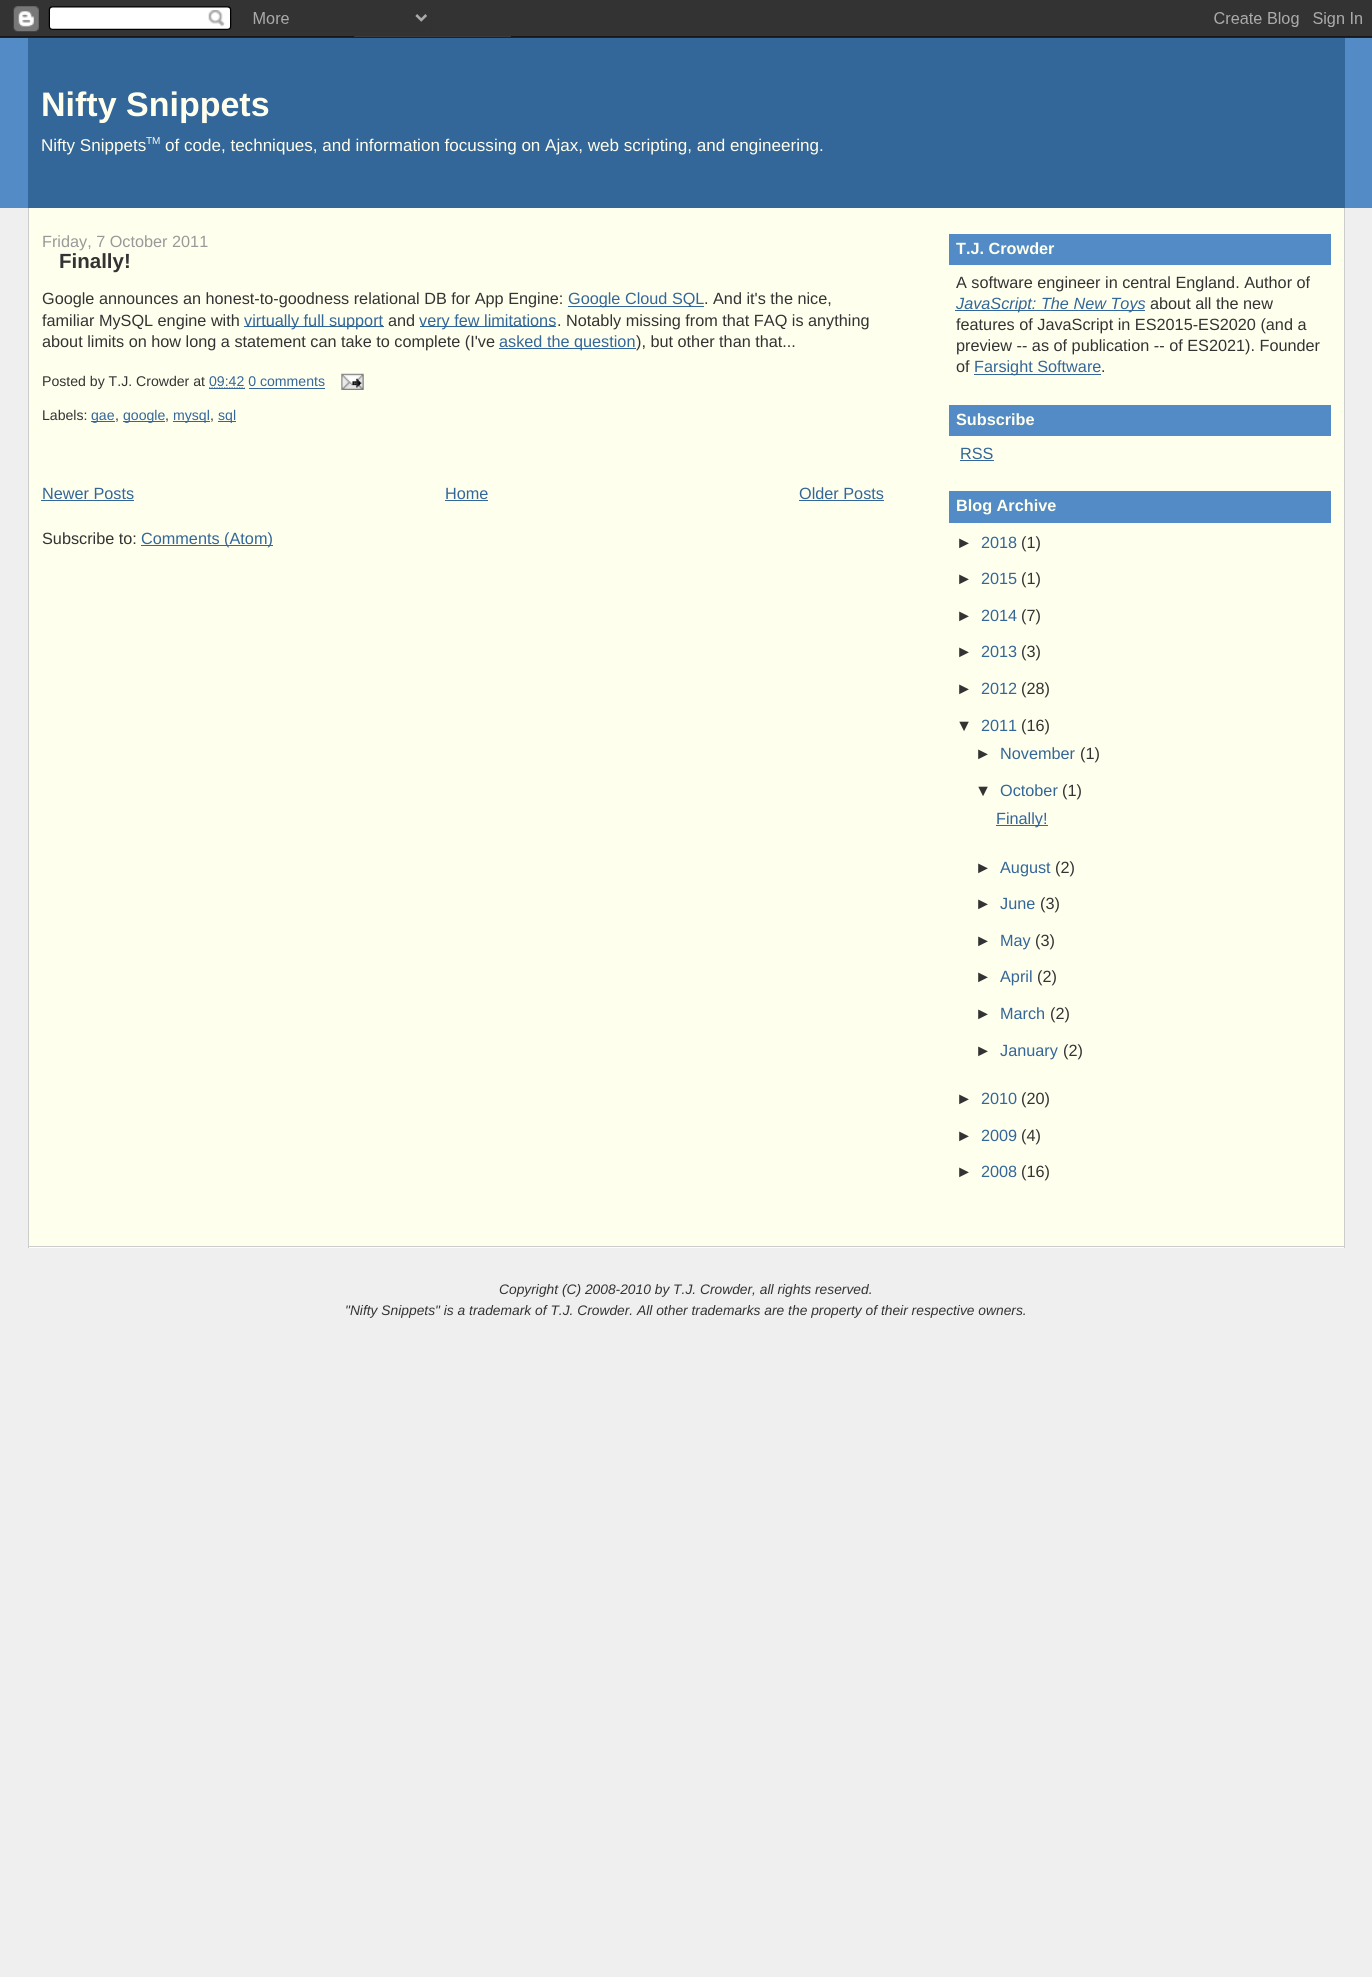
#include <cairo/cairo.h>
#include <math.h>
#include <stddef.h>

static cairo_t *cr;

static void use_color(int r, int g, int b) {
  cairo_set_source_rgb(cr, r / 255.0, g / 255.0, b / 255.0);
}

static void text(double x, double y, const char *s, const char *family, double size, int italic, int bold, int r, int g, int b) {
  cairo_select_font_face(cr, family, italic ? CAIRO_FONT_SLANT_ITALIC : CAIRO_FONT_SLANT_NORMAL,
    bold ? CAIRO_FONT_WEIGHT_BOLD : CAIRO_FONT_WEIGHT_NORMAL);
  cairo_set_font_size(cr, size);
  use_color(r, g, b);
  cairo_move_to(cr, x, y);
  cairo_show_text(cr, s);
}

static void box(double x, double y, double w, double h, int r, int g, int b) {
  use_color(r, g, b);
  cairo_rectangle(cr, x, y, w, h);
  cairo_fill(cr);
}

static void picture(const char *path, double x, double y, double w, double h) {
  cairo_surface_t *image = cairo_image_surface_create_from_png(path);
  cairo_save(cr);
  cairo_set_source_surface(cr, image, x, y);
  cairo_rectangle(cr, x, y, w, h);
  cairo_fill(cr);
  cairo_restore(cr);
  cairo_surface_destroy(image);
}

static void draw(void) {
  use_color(239, 239, 239);
  cairo_paint(cr);
  picture("img_01.png", 0, 0, 1372, 38);
  box(0, 38, 1372, 170, 82, 139, 197);
  box(28, 38, 1317, 170, 51, 102, 153);
  box(29, 208, 1315, 1040, 255, 255, 238);
  box(1344, 208, 1, 1040, 204, 204, 204);
  box(28, 1246, 1317, 1, 204, 204, 204);
  box(28, 208, 1, 1040, 204, 204, 204);
  box(568, 306, 136, 1, 51, 102, 153);
  box(244, 326, 140, 1, 51, 102, 153);
  box(420, 326, 136, 1, 51, 102, 153);
  box(499, 348, 137, 1, 51, 102, 153);
  cairo_new_path(cr);
  cairo_move_to(cr, 209, 388);
  cairo_line_to(cr, 244.5, 388);
  cairo_set_line_width(cr, 1.2);
  cairo_set_dash(cr, (double[]){1.25, 1.25}, 2, 0);
  cairo_stroke(cr);
  box(209, 388, 36, 1, 51, 102, 153);
  picture("img_02.png", 341, 373, 23, 17);
  box(249, 388, 76, 1, 51, 102, 153);
  box(91, 421, 24, 1, 51, 102, 153);
  box(123, 421, 42, 1, 51, 102, 153);
  box(173, 421, 37, 1, 51, 102, 153);
  box(218, 421, 18, 1, 51, 102, 153);
  box(41, 500, 93, 1, 51, 102, 153);
  box(445, 500, 43, 1, 51, 102, 153);
  box(799, 500, 85, 1, 51, 102, 153);
  box(141, 545, 132, 1, 51, 102, 153);
  box(949, 234, 382, 31, 82, 139, 197);
  box(955, 310, 190, 1, 51, 102, 153);
  box(974, 374, 127, 1, 51, 102, 153);
  box(949, 405, 382, 31, 82, 139, 197);
  box(960, 460, 34, 1, 51, 102, 153);
  box(949, 491, 382, 32, 82, 139, 197);
  box(996, 825, 52, 1, 51, 102, 153);
  text(41, 116, "Nifty Snippets", "Liberation Sans", 34, 0, 1, 255, 255, 238);
  text(41, 151, "Nifty Snippets", "Liberation Sans", 17.05, 0, 0, 255, 255, 238);
  text(146, 144, "TM", "Liberation Sans", 10, 0, 0, 255, 255, 238);
  text(165, 151, "of code, techniques, and information focussing on Ajax, web scripting, and engineering.", "Liberation Sans", 17.05, 0, 0, 255, 255, 238);
  text(42, 247, "Friday, 7 October 2011", "Liberation Sans", 16.25, 0, 0, 153, 153, 153);
  text(59, 268, "Finally!", "Liberation Sans", 20.5, 0, 1, 51, 51, 51);
  text(42, 304, "Google announces an honest-to-goodness relational DB for App Engine:", "Liberation Sans", 16.25, 0, 0, 51, 51, 51);
  text(568, 304, "Google Cloud SQL", "Liberation Sans", 16.25, 0, 0, 51, 102, 153);
  text(704, 304, ". And it's the nice,", "Liberation Sans", 16.25, 0, 0, 51, 51, 51);
  text(42, 326, "familiar MySQL engine with", "Liberation Sans", 16.25, 0, 0, 51, 51, 51);
  text(244, 326, "virtually full support", "Liberation Sans", 16.25, 0, 0, 51, 102, 153);
  text(388, 326, "and", "Liberation Sans", 16.25, 0, 0, 51, 51, 51);
  text(419, 326, "very few limitations", "Liberation Sans", 16.25, 0, 0, 51, 102, 153);
  text(557, 326, ". Notably missing from that FAQ is anything", "Liberation Sans", 16.25, 0, 0, 51, 51, 51);
  text(42, 347, "about limits on how long a statement can take to complete (I've", "Liberation Sans", 16.25, 0, 0, 51, 51, 51);
  text(499, 347, "asked the question", "Liberation Sans", 16.25, 0, 0, 51, 102, 153);
  text(636, 347, "), but other than that...", "Liberation Sans", 16.25, 0, 0, 51, 51, 51);
  text(42, 386, "Posted by T.J. Crowder at", "Liberation Sans", 14.1, 0, 0, 51, 51, 51);
  text(209, 386, "09:42 0 comments", "Liberation Sans", 14.1, 0, 0, 51, 102, 153);
  text(42, 420, "Labels:", "Liberation Sans", 14.1, 0, 0, 51, 51, 51);
  text(91, 420, "gae", "Liberation Sans", 14.1, 0, 0, 51, 102, 153);
  text(115, 420, ",", "Liberation Sans", 14.1, 0, 0, 51, 51, 51);
  text(123, 420, "google", "Liberation Sans", 14.1, 0, 0, 51, 102, 153);
  text(165, 420, ",", "Liberation Sans", 14.1, 0, 0, 51, 51, 51);
  text(173, 420, "mysql", "Liberation Sans", 14.1, 0, 0, 51, 102, 153);
  text(210, 420, ",", "Liberation Sans", 14.1, 0, 0, 51, 51, 51);
  text(218, 420, "sql", "Liberation Sans", 14.1, 0, 0, 51, 102, 153);
  text(42, 499, "Newer Posts", "Liberation Sans", 16.25, 0, 0, 51, 102, 153);
  text(445, 499, "Home", "Liberation Sans", 16.25, 0, 0, 51, 102, 153);
  text(799, 499, "Older Posts", "Liberation Sans", 16.25, 0, 0, 51, 102, 153);
  text(42, 544, "Subscribe to:", "Liberation Sans", 16.25, 0, 0, 51, 51, 51);
  text(141, 544, "Comments (Atom)", "Liberation Sans", 16.25, 0, 0, 51, 102, 153);
  text(956, 254, "T.J. Crowder", "Liberation Sans", 16.25, 0, 1, 255, 255, 238);
  text(956, 288, "A software engineer in central England. Author of", "Liberation Sans", 16.25, 0, 0, 51, 51, 51);
  text(956, 309, "JavaScript: The New Toys", "Liberation Sans", 16.25, 1, 0, 51, 102, 153);
  text(1150, 309, "about all the new", "Liberation Sans", 16.25, 0, 0, 51, 51, 51);
  text(956, 330, "features of JavaScript in ES2015-ES2020 (and a", "Liberation Sans", 16.25, 0, 0, 51, 51, 51);
  text(956, 351, "preview -- as of publication -- of ES2021). Founder", "Liberation Sans", 16.25, 0, 0, 51, 51, 51);
  text(956, 372, "of", "Liberation Sans", 16.25, 0, 0, 51, 51, 51);
  text(974, 372, "Farsight Software", "Liberation Sans", 16.25, 0, 0, 51, 102, 153);
  text(1101, 372, ".", "Liberation Sans", 16.25, 0, 0, 51, 51, 51);
  text(956, 425, "Subscribe", "Liberation Sans", 16.25, 0, 1, 255, 255, 238);
  text(960, 459, "RSS", "Liberation Sans", 16.25, 0, 0, 51, 102, 153);
  text(956, 511, "Blog Archive", "Liberation Sans", 16.25, 0, 1, 255, 255, 238);
  text(956, 548, "►", "Liberation Sans", 16.25, 0, 0, 51, 51, 51);
  text(981, 548, "2018", "Liberation Sans", 16.25, 0, 0, 51, 102, 153);
  text(1021, 548, "(1)", "Liberation Sans", 16.25, 0, 0, 51, 51, 51);
  text(956, 584, "►", "Liberation Sans", 16.25, 0, 0, 51, 51, 51);
  text(981, 584, "2015", "Liberation Sans", 16.25, 0, 0, 51, 102, 153);
  text(1021, 584, "(1)", "Liberation Sans", 16.25, 0, 0, 51, 51, 51);
  text(956, 621, "►", "Liberation Sans", 16.25, 0, 0, 51, 51, 51);
  text(981, 621, "2014", "Liberation Sans", 16.25, 0, 0, 51, 102, 153);
  text(1021, 621, "(7)", "Liberation Sans", 16.25, 0, 0, 51, 51, 51);
  text(956, 657, "►", "Liberation Sans", 16.25, 0, 0, 51, 51, 51);
  text(981, 657, "2013", "Liberation Sans", 16.25, 0, 0, 51, 102, 153);
  text(1021, 657, "(3)", "Liberation Sans", 16.25, 0, 0, 51, 51, 51);
  text(956, 694, "►", "Liberation Sans", 16.25, 0, 0, 51, 51, 51);
  text(981, 694, "2012", "Liberation Sans", 16.25, 0, 0, 51, 102, 153);
  text(1021, 694, "(28)", "Liberation Sans", 16.25, 0, 0, 51, 51, 51);
  text(956, 731, "▼", "Liberation Sans", 16.25, 0, 0, 51, 51, 51);
  text(981, 731, "2011", "Liberation Sans", 16.25, 0, 0, 51, 102, 153);
  text(1021, 731, "(16)", "Liberation Sans", 16.25, 0, 0, 51, 51, 51);
  text(975, 759, "►", "Liberation Sans", 16.25, 0, 0, 51, 51, 51);
  text(1000, 759, "November", "Liberation Sans", 16.25, 0, 0, 51, 102, 153);
  text(1080, 759, "(1)", "Liberation Sans", 16.25, 0, 0, 51, 51, 51);
  text(975, 796, "▼", "Liberation Sans", 16.25, 0, 0, 51, 51, 51);
  text(1000, 796, "October", "Liberation Sans", 16.25, 0, 0, 51, 102, 153);
  text(1062, 796, "(1)", "Liberation Sans", 16.25, 0, 0, 51, 51, 51);
  text(996, 824, "Finally!", "Liberation Sans", 16.25, 0, 0, 51, 102, 153);
  text(975, 873, "►", "Liberation Sans", 16.25, 0, 0, 51, 51, 51);
  text(1000, 873, "August", "Liberation Sans", 16.25, 0, 0, 51, 102, 153);
  text(1055, 873, "(2)", "Liberation Sans", 16.25, 0, 0, 51, 51, 51);
  text(975, 909, "►", "Liberation Sans", 16.25, 0, 0, 51, 51, 51);
  text(1000, 909, "June", "Liberation Sans", 16.25, 0, 0, 51, 102, 153);
  text(1040, 909, "(3)", "Liberation Sans", 16.25, 0, 0, 51, 51, 51);
  text(975, 946, "►", "Liberation Sans", 16.25, 0, 0, 51, 51, 51);
  text(1000, 946, "May", "Liberation Sans", 16.25, 0, 0, 51, 102, 153);
  text(1035, 946, "(3)", "Liberation Sans", 16.25, 0, 0, 51, 51, 51);
  text(975, 982, "►", "Liberation Sans", 16.25, 0, 0, 51, 51, 51);
  text(1000, 982, "April", "Liberation Sans", 16.25, 0, 0, 51, 102, 153);
  text(1037, 982, "(2)", "Liberation Sans", 16.25, 0, 0, 51, 51, 51);
  text(975, 1019, "►", "Liberation Sans", 16.25, 0, 0, 51, 51, 51);
  text(1000, 1019, "March", "Liberation Sans", 16.25, 0, 0, 51, 102, 153);
  text(1050, 1019, "(2)", "Liberation Sans", 16.25, 0, 0, 51, 51, 51);
  text(975, 1056, "►", "Liberation Sans", 16.25, 0, 0, 51, 51, 51);
  text(1000, 1056, "January", "Liberation Sans", 16.25, 0, 0, 51, 102, 153);
  text(1063, 1056, "(2)", "Liberation Sans", 16.25, 0, 0, 51, 51, 51);
  text(956, 1104, "►", "Liberation Sans", 16.25, 0, 0, 51, 51, 51);
  text(981, 1104, "2010", "Liberation Sans", 16.25, 0, 0, 51, 102, 153);
  text(1021, 1104, "(20)", "Liberation Sans", 16.25, 0, 0, 51, 51, 51);
  text(956, 1141, "►", "Liberation Sans", 16.25, 0, 0, 51, 51, 51);
  text(981, 1141, "2009", "Liberation Sans", 16.25, 0, 0, 51, 102, 153);
  text(1021, 1141, "(4)", "Liberation Sans", 16.25, 0, 0, 51, 51, 51);
  text(956, 1177, "►", "Liberation Sans", 16.25, 0, 0, 51, 51, 51);
  text(981, 1177, "2008", "Liberation Sans", 16.25, 0, 0, 51, 102, 153);
  text(1021, 1177, "(16)", "Liberation Sans", 16.25, 0, 0, 51, 51, 51);
  text(499, 1294, "Copyright (C) 2008-2010 by T.J. Crowder, all rights reserved.", "Liberation Sans", 13.8, 1, 0, 51, 51, 51);
  text(345, 1315, "\"Nifty Snippets\" is a trademark of T.J. Crowder. All other trademarks are the property of their respective owners.", "Liberation Sans", 13.8, 1, 0, 51, 51, 51);
}

int main(void) {
  cairo_surface_t *surface = cairo_image_surface_create(CAIRO_FORMAT_RGB24, 1372, 1977);
  cr = cairo_create(surface);
  cairo_font_options_t *options = cairo_font_options_create();
  cairo_font_options_set_hint_metrics(options, CAIRO_HINT_METRICS_OFF);
  cairo_font_options_set_hint_style(options, CAIRO_HINT_STYLE_NONE);
  cairo_set_font_options(cr, options);
  cairo_set_miter_limit(cr, 4);
  draw();
  cairo_surface_write_to_png(surface, "out.png");
  cairo_font_options_destroy(options);
  cairo_destroy(cr);
  cairo_surface_destroy(surface);
  return 0;
}
